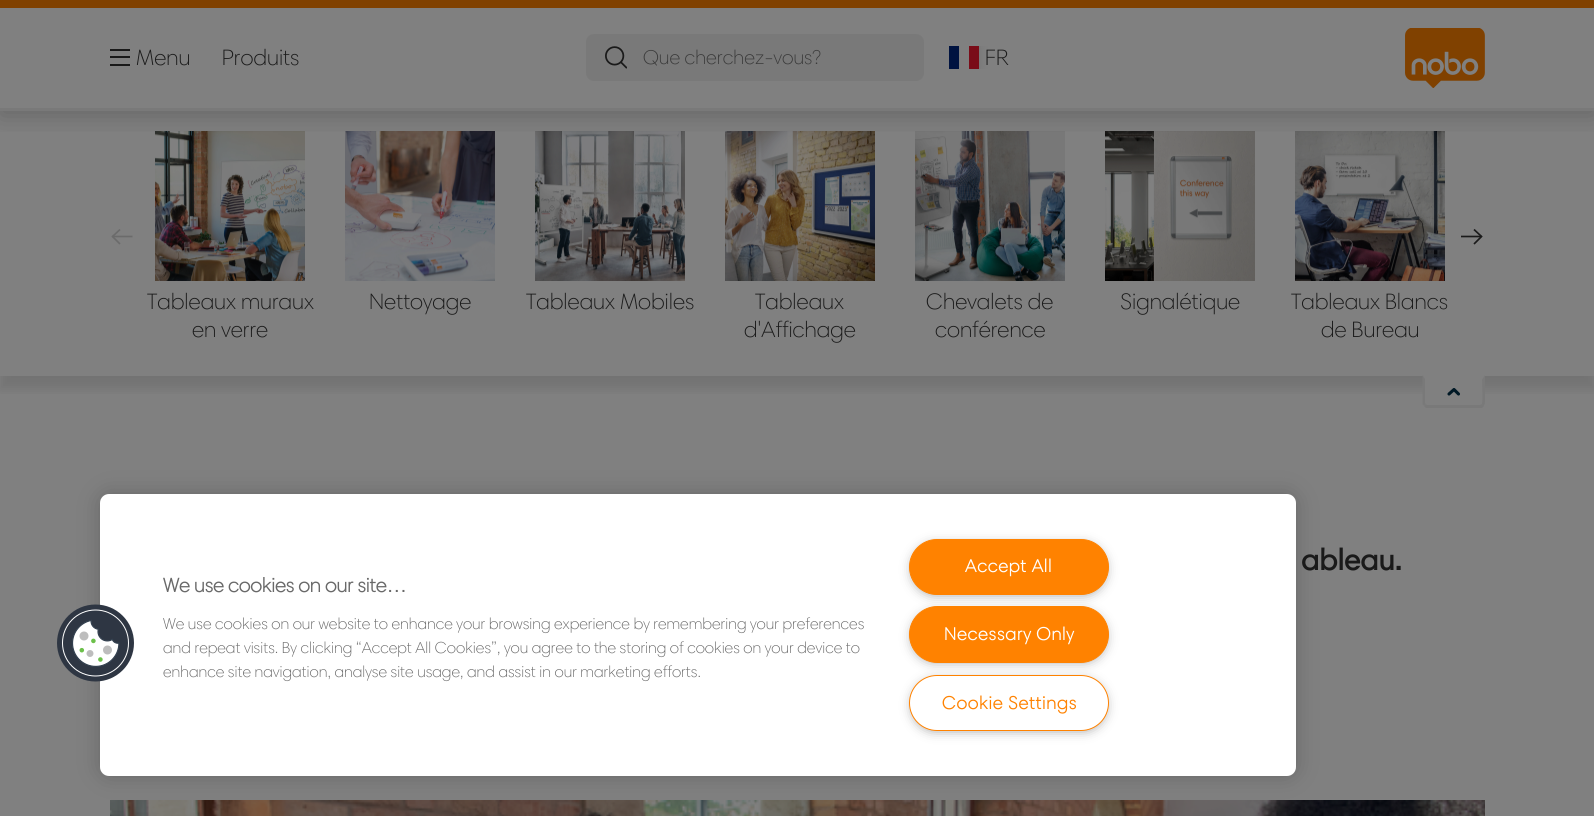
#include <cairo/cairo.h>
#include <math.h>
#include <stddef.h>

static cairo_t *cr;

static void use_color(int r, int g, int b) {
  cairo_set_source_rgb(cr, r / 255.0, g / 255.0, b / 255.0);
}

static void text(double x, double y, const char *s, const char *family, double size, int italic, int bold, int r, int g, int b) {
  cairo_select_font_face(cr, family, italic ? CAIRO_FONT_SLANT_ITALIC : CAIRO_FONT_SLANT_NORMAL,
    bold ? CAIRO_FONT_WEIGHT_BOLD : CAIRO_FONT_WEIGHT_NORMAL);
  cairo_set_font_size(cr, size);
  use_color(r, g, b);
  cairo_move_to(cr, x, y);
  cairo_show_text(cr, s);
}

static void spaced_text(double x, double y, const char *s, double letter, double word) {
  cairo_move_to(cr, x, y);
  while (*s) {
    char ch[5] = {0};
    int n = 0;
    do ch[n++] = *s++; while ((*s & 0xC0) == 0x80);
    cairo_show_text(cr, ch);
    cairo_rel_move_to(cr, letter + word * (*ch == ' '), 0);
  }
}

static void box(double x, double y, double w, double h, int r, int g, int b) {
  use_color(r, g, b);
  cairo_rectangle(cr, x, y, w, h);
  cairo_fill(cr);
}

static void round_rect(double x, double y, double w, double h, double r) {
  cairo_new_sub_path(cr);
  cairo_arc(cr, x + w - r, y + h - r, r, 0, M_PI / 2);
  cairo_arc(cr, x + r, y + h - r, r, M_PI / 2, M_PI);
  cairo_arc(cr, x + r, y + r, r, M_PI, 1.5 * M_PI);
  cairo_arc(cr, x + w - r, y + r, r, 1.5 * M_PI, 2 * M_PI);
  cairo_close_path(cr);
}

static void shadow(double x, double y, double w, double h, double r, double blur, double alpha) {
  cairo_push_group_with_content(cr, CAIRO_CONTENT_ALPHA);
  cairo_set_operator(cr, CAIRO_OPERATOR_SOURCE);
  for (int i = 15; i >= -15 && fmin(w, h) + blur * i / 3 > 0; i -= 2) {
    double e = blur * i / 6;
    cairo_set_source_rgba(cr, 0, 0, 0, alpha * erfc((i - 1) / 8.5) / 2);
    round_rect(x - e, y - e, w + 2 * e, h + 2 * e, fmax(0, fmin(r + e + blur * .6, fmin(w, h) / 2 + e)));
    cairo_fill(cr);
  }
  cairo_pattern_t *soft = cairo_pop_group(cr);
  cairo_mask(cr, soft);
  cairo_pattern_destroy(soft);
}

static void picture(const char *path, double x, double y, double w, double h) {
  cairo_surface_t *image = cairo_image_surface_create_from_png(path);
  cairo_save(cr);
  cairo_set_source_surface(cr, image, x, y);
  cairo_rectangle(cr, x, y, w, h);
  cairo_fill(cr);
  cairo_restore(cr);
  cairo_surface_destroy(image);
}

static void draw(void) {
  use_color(128, 128, 128);
  cairo_paint(cr);
  cairo_save(cr);
  cairo_rectangle(cr, 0, 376, 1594, 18);
  cairo_clip(cr);
  use_color(0, 0, 0);
  shadow(0, 113, 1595, 276, 0, 6, 0.1);
  cairo_restore(cr);
  picture("img_03.png", 155, 131, 150, 150);
  picture("img_04.png", 345, 131, 150, 150);
  picture("img_05.png", 535, 131, 150, 150);
  picture("img_06.png", 725, 131, 150, 150);
  picture("img_07.png", 915, 131, 150, 150);
  picture("img_08.png", 1105, 131, 150, 150);
  picture("img_09.png", 1295, 131, 150, 150);
  cairo_save(cr);
  cairo_rectangle(cr, 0, 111, 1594, 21);
  cairo_clip(cr);
  use_color(0, 0, 0);
  shadow(0, 6, 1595, 110, 0, 12.5, 0.2);
  cairo_restore(cr);
  box(0, 0, 1594, 8, 128, 65, 0);
  box(0, 108, 1594, 3, 121, 121, 121);
  box(110, 56, 20, 2, 26, 26, 26);
  box(110, 49, 20, 2, 26, 26, 26);
  box(110, 64, 20, 2, 26, 26, 26);
  use_color(121, 121, 121);
  round_rect(586, 34, 338, 47, 8);
  cairo_fill(cr);
  picture("img_01.png", 605, 46, 22, 23);
  cairo_save(cr);
  cairo_rectangle(cr, 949, 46, 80, 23);
  cairo_clip(cr);
  use_color(0, 0, 0);
  shadow(949, 46, 30, 23, 0, 5, 0.1);
  cairo_restore(cr);
  box(959, 46, 10, 23, 128, 128, 128);
  box(949, 46, 10, 23, 0, 19, 64);
  box(969, 46, 10, 23, 122, 12, 24);
  picture("img_02.png", 1405, 28, 80, 60);
  cairo_new_path(cr);
  cairo_move_to(cr, 132.5, 236.5);
  cairo_line_to(cr, 112.5, 236.5);
  use_color(107, 107, 107);
  cairo_set_line_width(cr, 1.7);
  cairo_set_line_join(cr, CAIRO_LINE_JOIN_ROUND);
  cairo_stroke(cr);
  cairo_new_path(cr);
  cairo_move_to(cr, 120, 229.5);
  cairo_line_to(cr, 112.5, 236.5);
  cairo_line_to(cr, 120, 244);
  cairo_set_line_join(cr, CAIRO_LINE_JOIN_MITER);
  cairo_stroke(cr);
  cairo_new_path(cr);
  cairo_move_to(cr, 1461, 236.5);
  cairo_line_to(cr, 1481.5, 236.5);
  use_color(26, 26, 26);
  cairo_set_line_join(cr, CAIRO_LINE_JOIN_ROUND);
  cairo_stroke(cr);
  cairo_new_path(cr);
  cairo_move_to(cr, 1474, 229.5);
  cairo_line_to(cr, 1481.5, 236.5);
  cairo_line_to(cr, 1474, 244);
  cairo_set_line_join(cr, CAIRO_LINE_JOIN_MITER);
  cairo_stroke(cr);
  use_color(128, 128, 128);
  cairo_new_path(cr);
  cairo_move_to(cr, 1423, 375);
  cairo_line_to(cr, 1485, 375);
  cairo_line_to(cr, 1485, 403);
  cairo_curve_to(cr, 1485, 406, 1483, 408, 1480, 408);
  cairo_line_to(cr, 1428, 408);
  cairo_curve_to(cr, 1425, 408, 1423, 406, 1423, 403);
  cairo_close_path(cr);
  cairo_fill(cr);
  use_color(121, 121, 121);
  cairo_new_path(cr);
  cairo_move_to(cr, 1485, 375);
  cairo_line_to(cr, 1482, 379.5);
  cairo_line_to(cr, 1482.5, 398.5);
  cairo_line_to(cr, 1482, 404);
  cairo_line_to(cr, 1481.5, 404);
  cairo_line_to(cr, 1483.5, 406);
  cairo_curve_to(cr, 1484.5, 405, 1485, 403.5, 1485, 402);
  cairo_close_path(cr);
  cairo_fill(cr);
  cairo_new_path(cr);
  cairo_move_to(cr, 1426, 408);
  cairo_line_to(cr, 1424, 406);
  cairo_line_to(cr, 1426, 404);
  cairo_line_to(cr, 1427, 405);
  cairo_line_to(cr, 1480, 405);
  cairo_line_to(cr, 1482, 404);
  cairo_line_to(cr, 1484, 406);
  cairo_line_to(cr, 1482, 408);
  cairo_close_path(cr);
  cairo_fill(cr);
  cairo_new_path(cr);
  cairo_move_to(cr, 1425, 379);
  cairo_line_to(cr, 1425, 403);
  cairo_line_to(cr, 1426, 404);
  cairo_line_to(cr, 1424, 406);
  cairo_line_to(cr, 1422.5, 404);
  cairo_line_to(cr, 1422.5, 375);
  cairo_close_path(cr);
  cairo_fill(cr);
  cairo_new_path(cr);
  cairo_move_to(cr, 1449, 394);
  cairo_line_to(cr, 1454, 389.5);
  cairo_line_to(cr, 1458.5, 394);
  use_color(0, 24, 37);
  cairo_set_line_width(cr, 3.1);
  cairo_set_line_cap(cr, CAIRO_LINE_CAP_ROUND);
  cairo_set_line_join(cr, CAIRO_LINE_JOIN_ROUND);
  cairo_stroke(cr);
  picture("img_11.png", 110, 800, 1375, 16);
  use_color(0, 0, 0);
  shadow(100, 494, 1196, 282, 9, 11, 0.2);
  use_color(255, 255, 255);
  round_rect(100, 494, 1196, 282, 9);
  cairo_fill(cr);
  picture("img_10.png", 57, 604, 77, 78);
  use_color(153, 153, 153);
  shadow(913, 545, 192, 49, 24.5, 6, 1);
  use_color(255, 130, 0);
  round_rect(909.5, 539.5, 199, 55, 27.5);
  cairo_fill_preserve(cr);
  cairo_set_line_width(cr, 1);
  cairo_set_line_cap(cr, CAIRO_LINE_CAP_BUTT);
  cairo_set_line_join(cr, CAIRO_LINE_JOIN_MITER);
  cairo_stroke(cr);
  use_color(153, 153, 153);
  shadow(913, 613, 192, 48, 24, 6, 1);
  use_color(255, 130, 0);
  round_rect(909.5, 606.5, 199, 56, 28);
  cairo_fill_preserve(cr);
  cairo_stroke(cr);
  use_color(153, 153, 153);
  shadow(913, 681, 192, 49, 24.5, 6, 1);
  use_color(255, 255, 255);
  round_rect(909.5, 675.5, 199, 55, 27.5);
  cairo_fill_preserve(cr);
  use_color(255, 130, 0);
  cairo_stroke(cr);
  text(136, 65, "Menu", "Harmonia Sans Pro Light", 22.5, 0, 0, 26, 26, 26);
  text(222, 65, "Produits", "Harmonia Sans Pro Light", 22.5, 0, 0, 26, 26, 26);
  text(643, 64, "Que cherchez-vous?", "Harmonia Sans Pro Light", 20, 0, 0, 59, 59, 59);
  text(985, 65, "FR", "Harmonia Sans Pro Light", 22.5, 0, 0, 26, 26, 26);
  text(147, 309, "Tableaux muraux", "Harmonia Sans Pro Light", 22.5, 0, 0, 26, 26, 26);
  text(192, 337, "en verre", "Harmonia Sans Pro Light", 22.5, 0, 0, 26, 26, 26);
  text(369, 309, "Nettoyage", "Harmonia Sans Pro Light", 22.5, 0, 0, 26, 26, 26);
  text(526, 309, "Tableaux Mobiles", "Harmonia Sans Pro Light", 22.5, 0, 0, 26, 26, 26);
  text(755, 309, "Tableaux", "Harmonia Sans Pro Light", 22.5, 0, 0, 26, 26, 26);
  text(744, 337, "d'Affichage", "Harmonia Sans Pro Light", 22.5, 0, 0, 26, 26, 26);
  text(926, 309, "Chevalets de", "Harmonia Sans Pro Light", 22.5, 0, 0, 26, 26, 26);
  text(935, 337, "conférence", "Harmonia Sans Pro Light", 22.5, 0, 0, 26, 26, 26);
  text(1120, 309, "Signalétique", "Harmonia Sans Pro Light", 22.5, 0, 0, 26, 26, 26);
  text(1291, 309, "Tableaux Blancs", "Harmonia Sans Pro Light", 22.5, 0, 0, 26, 26, 26);
  text(1321, 337, "de Bureau", "Harmonia Sans Pro Light", 22.5, 0, 0, 26, 26, 26);
  text(163, 592, "We use cookies on our site…", "Harmonia Sans Pro", 20, 0, 1, 105, 105, 105);
  text(163, 629, "We use cookies on our website to enhance your browsing experience by remembering your preferences", "Harmonia Sans Pro Light", 16, 0, 0, 105, 105, 105);
  text(163, 653, "and repeat visits. By clicking “Accept All Cookies”, you agree to the storing of cookies on your device to", "Harmonia Sans Pro Light", 16, 0, 0, 105, 105, 105);
  text(163, 677, "enhance site navigation, analyse site usage, and assist in our marketing efforts.", "Harmonia Sans Pro Light", 16, 0, 0, 105, 105, 105);
  cairo_select_font_face(cr, "Harmonia Sans Pro", CAIRO_FONT_SLANT_NORMAL, CAIRO_FONT_WEIGHT_BOLD);
  cairo_set_font_size(cr, 18);
  use_color(255, 255, 255);
  spaced_text(965, 572, "Accept All", 0.9, 0);
  spaced_text(944, 640, "Necessary Only", 0.9, 0);
  use_color(255, 130, 0);
  spaced_text(942, 709, "Cookie Settings", 0.9, 0);
  text(1301, 570, "ableau.", "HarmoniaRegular", 30, 0, 1, 26, 26, 26);
}

int main(void) {
  cairo_surface_t *surface = cairo_image_surface_create(CAIRO_FORMAT_RGB24, 1594, 816);
  cr = cairo_create(surface);
  cairo_font_options_t *options = cairo_font_options_create();
  cairo_font_options_set_hint_metrics(options, CAIRO_HINT_METRICS_OFF);
  cairo_font_options_set_hint_style(options, CAIRO_HINT_STYLE_NONE);
  cairo_set_font_options(cr, options);
  cairo_set_miter_limit(cr, 4);
  draw();
  cairo_surface_write_to_png(surface, "out.png");
  cairo_font_options_destroy(options);
  cairo_destroy(cr);
  cairo_surface_destroy(surface);
  return 0;
}
